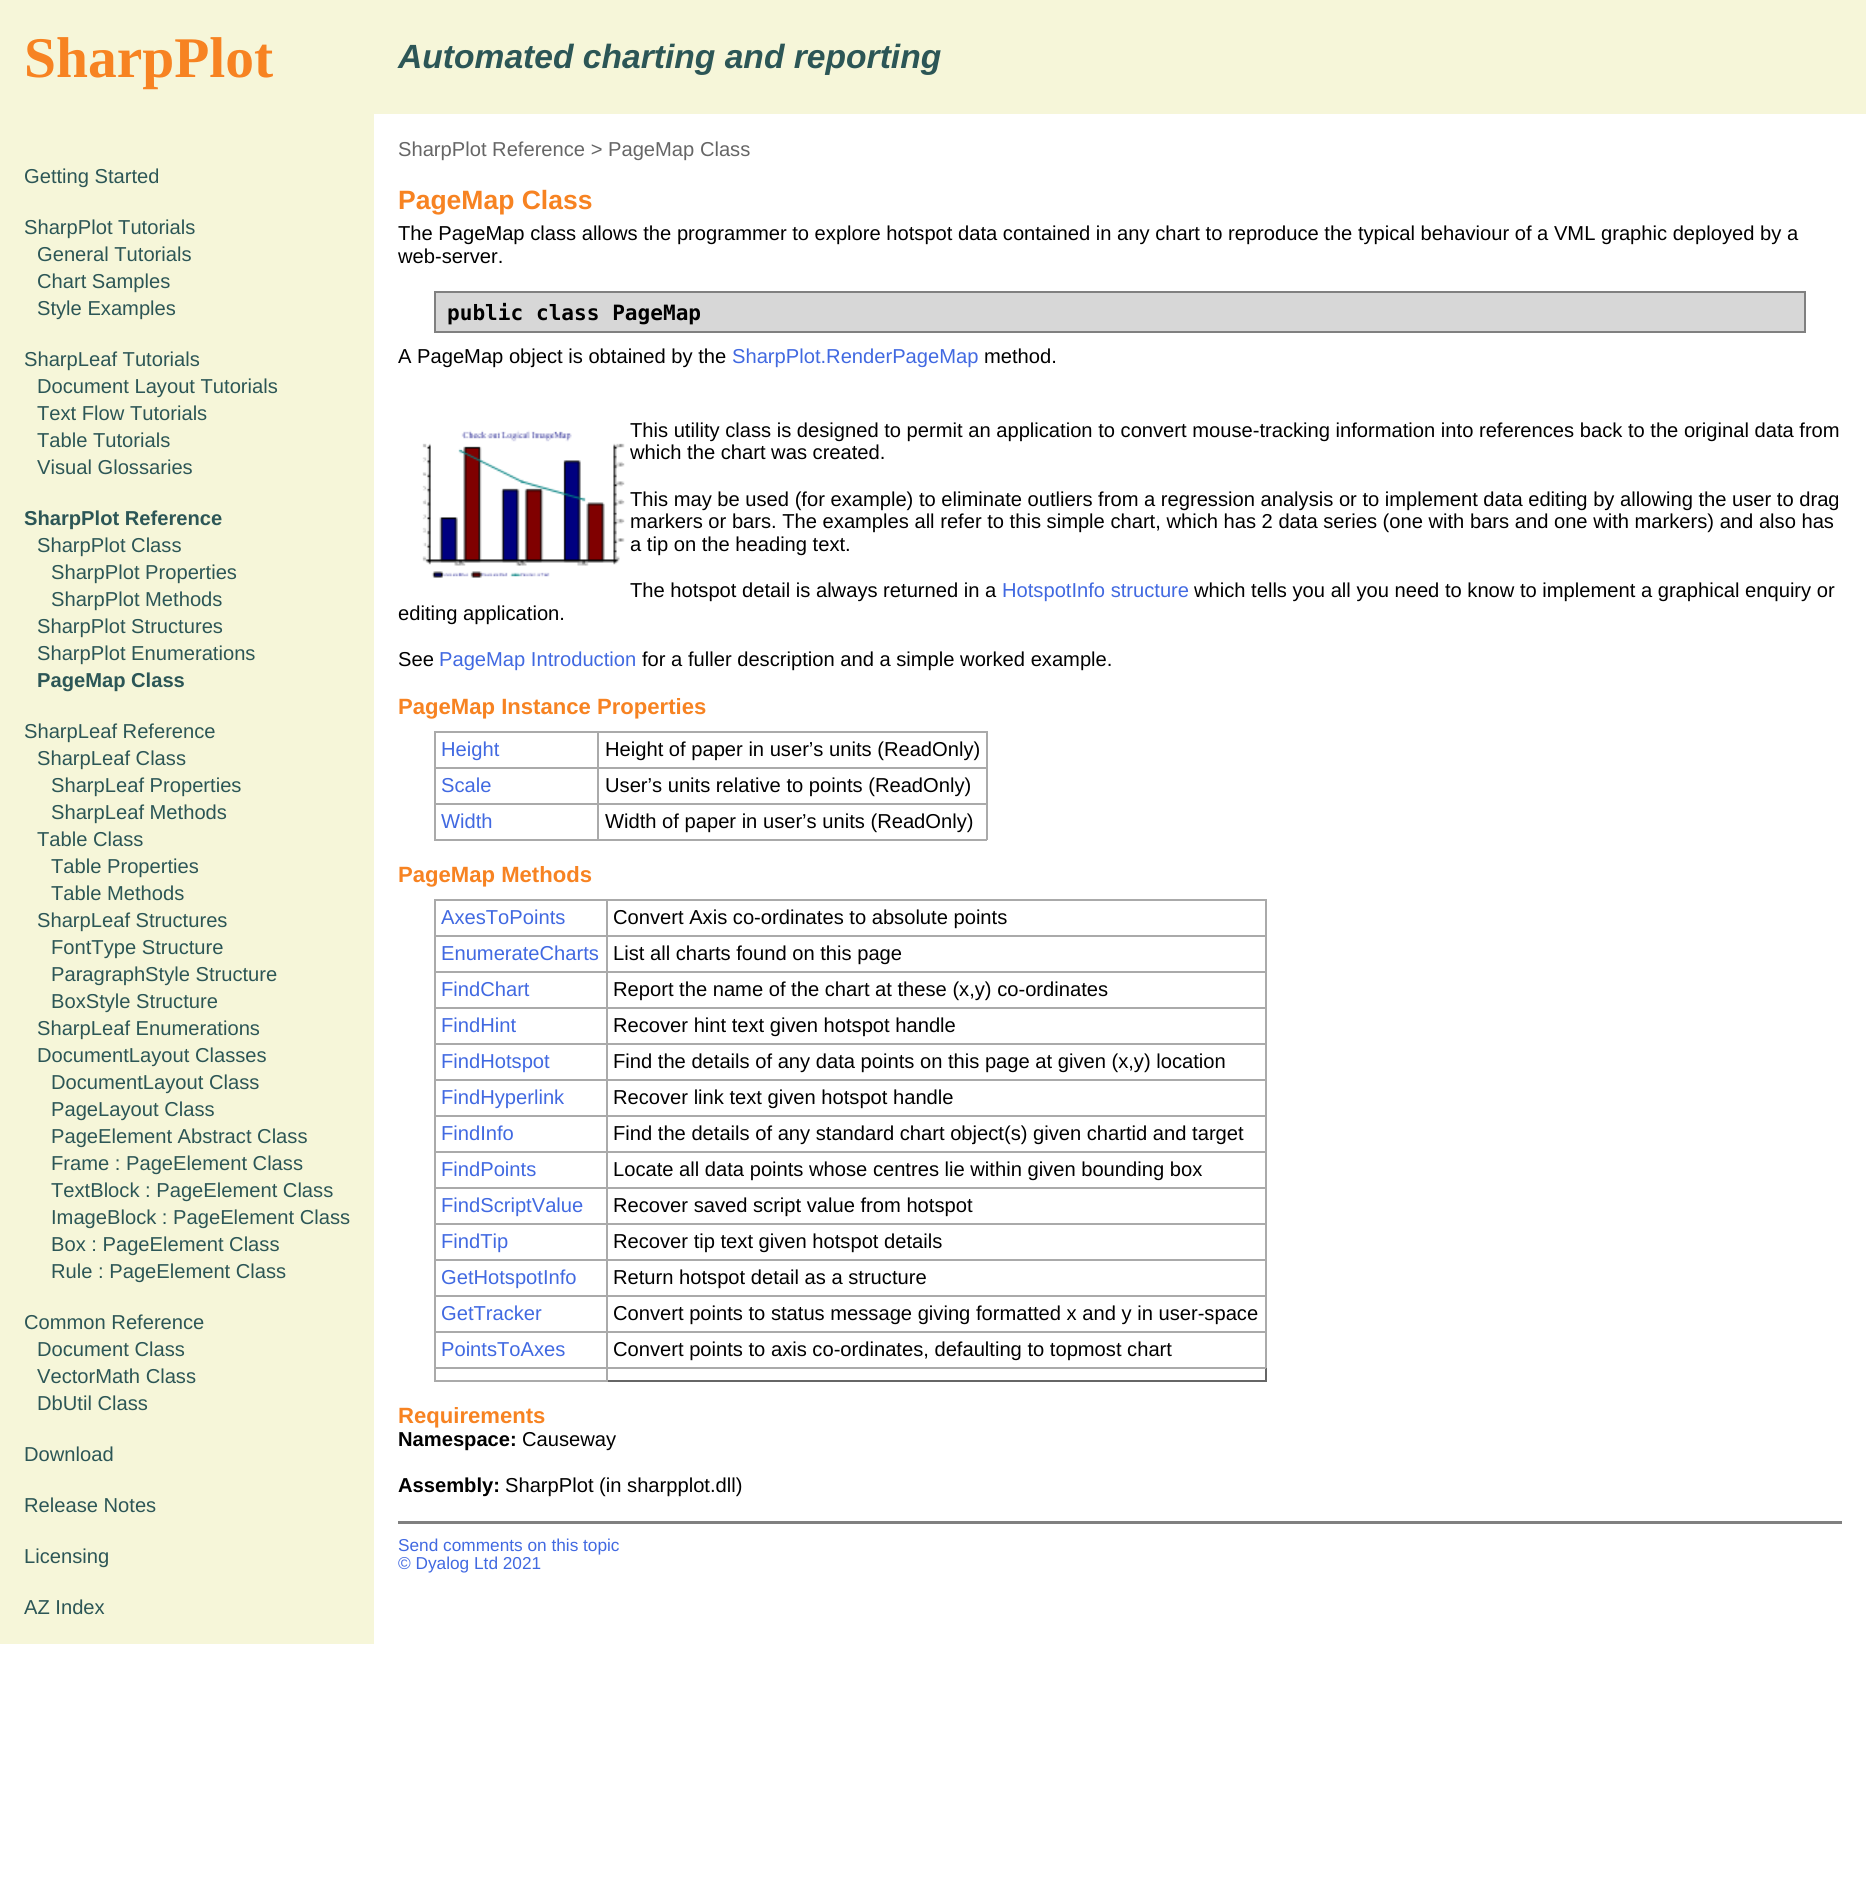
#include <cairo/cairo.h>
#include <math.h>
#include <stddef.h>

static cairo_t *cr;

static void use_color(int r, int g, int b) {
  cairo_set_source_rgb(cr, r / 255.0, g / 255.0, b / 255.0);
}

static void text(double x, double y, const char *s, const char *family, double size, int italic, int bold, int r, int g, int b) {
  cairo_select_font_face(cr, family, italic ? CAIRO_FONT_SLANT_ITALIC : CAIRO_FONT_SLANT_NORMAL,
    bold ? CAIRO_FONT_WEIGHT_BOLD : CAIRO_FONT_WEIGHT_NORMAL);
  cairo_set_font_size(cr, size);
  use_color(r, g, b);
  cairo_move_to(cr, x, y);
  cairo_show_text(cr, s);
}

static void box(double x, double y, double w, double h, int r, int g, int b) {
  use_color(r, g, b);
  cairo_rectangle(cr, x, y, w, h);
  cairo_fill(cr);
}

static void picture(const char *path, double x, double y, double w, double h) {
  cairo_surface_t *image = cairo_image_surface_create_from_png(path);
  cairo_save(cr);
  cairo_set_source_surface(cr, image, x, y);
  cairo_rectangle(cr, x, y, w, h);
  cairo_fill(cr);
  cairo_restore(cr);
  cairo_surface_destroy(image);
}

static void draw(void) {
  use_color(255, 255, 255);
  cairo_paint(cr);
  box(0, 0, 1866, 114, 246, 246, 217);
  box(0, 114, 374, 1530, 246, 246, 217);
  use_color(215, 215, 215);
  cairo_rectangle(cr, 435, 292, 1370, 40);
  cairo_fill_preserve(cr);
  use_color(128, 128, 128);
  cairo_stroke(cr);
  picture("img_01.png", 422, 430, 203, 148);
  box(597, 731, 390, 2, 170, 170, 170);
  box(597, 767, 390, 2, 170, 170, 170);
  box(597, 803, 390, 2, 170, 170, 170);
  box(986, 803, 2, 37, 170, 170, 170);
  box(597, 839, 390, 2, 170, 170, 170);
  box(597, 803, 2, 37, 170, 170, 170);
  box(434, 803, 165, 2, 170, 170, 170);
  box(597, 767, 2, 37, 170, 170, 170);
  box(434, 767, 165, 2, 170, 170, 170);
  box(597, 731, 2, 37, 170, 170, 170);
  box(434, 731, 165, 2, 170, 170, 170);
  box(434, 839, 165, 2, 170, 170, 170);
  box(434, 803, 2, 37, 170, 170, 170);
  box(434, 767, 2, 37, 170, 170, 170);
  box(434, 731, 2, 37, 170, 170, 170);
  box(986, 767, 2, 37, 170, 170, 170);
  box(986, 731, 2, 37, 170, 170, 170);
  box(1265, 1368, 2, 14, 102, 102, 102);
  box(608, 1380, 658, 2, 102, 102, 102);
  box(606, 899, 660, 2, 170, 170, 170);
  box(606, 935, 660, 2, 170, 170, 170);
  box(606, 971, 660, 2, 170, 170, 170);
  box(606, 1007, 660, 2, 170, 170, 170);
  box(606, 1043, 660, 2, 170, 170, 170);
  box(606, 1079, 660, 2, 170, 170, 170);
  box(606, 1115, 660, 2, 170, 170, 170);
  box(606, 1151, 660, 2, 170, 170, 170);
  box(606, 1187, 660, 2, 170, 170, 170);
  box(606, 1223, 660, 2, 170, 170, 170);
  box(606, 1259, 660, 2, 170, 170, 170);
  box(606, 1295, 660, 2, 170, 170, 170);
  box(606, 1331, 660, 2, 170, 170, 170);
  box(1265, 1331, 2, 37, 170, 170, 170);
  box(434, 1367, 174, 2, 170, 170, 170);
  box(606, 1367, 2, 15, 170, 170, 170);
  box(606, 1367, 660, 2, 170, 170, 170);
  box(606, 1331, 2, 37, 170, 170, 170);
  box(434, 1331, 174, 2, 170, 170, 170);
  box(606, 1295, 2, 37, 170, 170, 170);
  box(434, 1295, 174, 2, 170, 170, 170);
  box(606, 1259, 2, 37, 170, 170, 170);
  box(434, 1259, 174, 2, 170, 170, 170);
  box(606, 1223, 2, 37, 170, 170, 170);
  box(434, 1223, 174, 2, 170, 170, 170);
  box(606, 1187, 2, 37, 170, 170, 170);
  box(434, 1187, 174, 2, 170, 170, 170);
  box(606, 1151, 2, 37, 170, 170, 170);
  box(434, 1151, 174, 2, 170, 170, 170);
  box(606, 1115, 2, 37, 170, 170, 170);
  box(434, 1115, 174, 2, 170, 170, 170);
  box(606, 1079, 2, 37, 170, 170, 170);
  box(434, 1079, 174, 2, 170, 170, 170);
  box(606, 1043, 2, 37, 170, 170, 170);
  box(434, 1043, 174, 2, 170, 170, 170);
  box(606, 1007, 2, 37, 170, 170, 170);
  box(434, 1007, 174, 2, 170, 170, 170);
  box(606, 971, 2, 37, 170, 170, 170);
  box(434, 971, 174, 2, 170, 170, 170);
  box(606, 935, 2, 37, 170, 170, 170);
  box(434, 935, 174, 2, 170, 170, 170);
  box(606, 899, 2, 37, 170, 170, 170);
  box(434, 899, 174, 2, 170, 170, 170);
  box(434, 1380, 174, 2, 170, 170, 170);
  box(434, 1367, 2, 15, 170, 170, 170);
  box(434, 1331, 2, 37, 170, 170, 170);
  box(434, 1295, 2, 37, 170, 170, 170);
  box(434, 1259, 2, 37, 170, 170, 170);
  box(434, 1223, 2, 37, 170, 170, 170);
  box(434, 1187, 2, 37, 170, 170, 170);
  box(434, 1151, 2, 37, 170, 170, 170);
  box(434, 1115, 2, 37, 170, 170, 170);
  box(434, 1079, 2, 37, 170, 170, 170);
  box(434, 1043, 2, 37, 170, 170, 170);
  box(434, 1007, 2, 37, 170, 170, 170);
  box(434, 971, 2, 37, 170, 170, 170);
  box(434, 935, 2, 37, 170, 170, 170);
  box(434, 899, 2, 37, 170, 170, 170);
  box(1265, 1295, 2, 37, 170, 170, 170);
  box(1265, 1259, 2, 37, 170, 170, 170);
  box(1265, 1223, 2, 37, 170, 170, 170);
  box(1265, 1187, 2, 37, 170, 170, 170);
  box(1265, 1151, 2, 37, 170, 170, 170);
  box(1265, 1115, 2, 37, 170, 170, 170);
  box(1265, 1079, 2, 37, 170, 170, 170);
  box(1265, 1043, 2, 37, 170, 170, 170);
  box(1265, 1007, 2, 37, 170, 170, 170);
  box(1265, 971, 2, 37, 170, 170, 170);
  box(1265, 935, 2, 37, 170, 170, 170);
  box(1265, 899, 2, 37, 170, 170, 170);
  box(398, 1521, 1444, 3, 128, 128, 128);
  text(24, 77, "SharpPlot", "Liberation Serif", 57.5, 0, 1, 247, 131, 34);
  text(398, 68, "Automated charting and reporting", "Liberation Sans", 33.6, 1, 1, 44, 86, 86);
  text(24, 183, "Getting Started", "Liberation Sans", 20.15, 0, 0, 44, 86, 86);
  text(24, 234, "SharpPlot Tutorials", "Liberation Sans", 20.15, 0, 0, 44, 86, 86);
  text(37, 261, "General Tutorials", "Liberation Sans", 20.15, 0, 0, 44, 86, 86);
  text(37, 288, "Chart Samples", "Liberation Sans", 20.15, 0, 0, 44, 86, 86);
  text(37, 315, "Style Examples", "Liberation Sans", 20.15, 0, 0, 44, 86, 86);
  text(24, 366, "SharpLeaf Tutorials", "Liberation Sans", 20.15, 0, 0, 44, 86, 86);
  text(37, 393, "Document Layout Tutorials", "Liberation Sans", 20.15, 0, 0, 44, 86, 86);
  text(37, 420, "Text Flow Tutorials", "Liberation Sans", 20.15, 0, 0, 44, 86, 86);
  text(37, 447, "Table Tutorials", "Liberation Sans", 20.15, 0, 0, 44, 86, 86);
  text(37, 474, "Visual Glossaries", "Liberation Sans", 20.15, 0, 0, 44, 86, 86);
  text(24, 525, "SharpPlot Reference", "Liberation Sans", 20.15, 0, 1, 44, 86, 86);
  text(37, 552, "SharpPlot Class", "Liberation Sans", 20.15, 0, 0, 44, 86, 86);
  text(51, 579, "SharpPlot Properties", "Liberation Sans", 20.15, 0, 0, 44, 86, 86);
  text(51, 606, "SharpPlot Methods", "Liberation Sans", 20.15, 0, 0, 44, 86, 86);
  text(37, 633, "SharpPlot Structures", "Liberation Sans", 20.15, 0, 0, 44, 86, 86);
  text(37, 660, "SharpPlot Enumerations", "Liberation Sans", 20.15, 0, 0, 44, 86, 86);
  text(37, 687, "PageMap Class", "Liberation Sans", 20.15, 0, 1, 44, 86, 86);
  text(24, 738, "SharpLeaf Reference", "Liberation Sans", 20.15, 0, 0, 44, 86, 86);
  text(37, 765, "SharpLeaf Class", "Liberation Sans", 20.15, 0, 0, 44, 86, 86);
  text(51, 792, "SharpLeaf Properties", "Liberation Sans", 20.15, 0, 0, 44, 86, 86);
  text(51, 819, "SharpLeaf Methods", "Liberation Sans", 20.15, 0, 0, 44, 86, 86);
  text(37, 846, "Table Class", "Liberation Sans", 20.15, 0, 0, 44, 86, 86);
  text(51, 873, "Table Properties", "Liberation Sans", 20.15, 0, 0, 44, 86, 86);
  text(51, 900, "Table Methods", "Liberation Sans", 20.15, 0, 0, 44, 86, 86);
  text(37, 927, "SharpLeaf Structures", "Liberation Sans", 20.15, 0, 0, 44, 86, 86);
  text(51, 954, "FontType Structure", "Liberation Sans", 20.15, 0, 0, 44, 86, 86);
  text(51, 981, "ParagraphStyle Structure", "Liberation Sans", 20.15, 0, 0, 44, 86, 86);
  text(51, 1008, "BoxStyle Structure", "Liberation Sans", 20.15, 0, 0, 44, 86, 86);
  text(37, 1035, "SharpLeaf Enumerations", "Liberation Sans", 20.15, 0, 0, 44, 86, 86);
  text(37, 1062, "DocumentLayout Classes", "Liberation Sans", 20.15, 0, 0, 44, 86, 86);
  text(51, 1089, "DocumentLayout Class", "Liberation Sans", 20.15, 0, 0, 44, 86, 86);
  text(51, 1116, "PageLayout Class", "Liberation Sans", 20.15, 0, 0, 44, 86, 86);
  text(51, 1143, "PageElement Abstract Class", "Liberation Sans", 20.15, 0, 0, 44, 86, 86);
  text(51, 1170, "Frame : PageElement Class", "Liberation Sans", 20.15, 0, 0, 44, 86, 86);
  text(51, 1197, "TextBlock : PageElement Class", "Liberation Sans", 20.15, 0, 0, 44, 86, 86);
  text(51, 1224, "ImageBlock : PageElement Class", "Liberation Sans", 20.15, 0, 0, 44, 86, 86);
  text(51, 1251, "Box : PageElement Class", "Liberation Sans", 20.15, 0, 0, 44, 86, 86);
  text(51, 1278, "Rule : PageElement Class", "Liberation Sans", 20.15, 0, 0, 44, 86, 86);
  text(24, 1329, "Common Reference", "Liberation Sans", 20.15, 0, 0, 44, 86, 86);
  text(37, 1356, "Document Class", "Liberation Sans", 20.15, 0, 0, 44, 86, 86);
  text(37, 1383, "VectorMath Class", "Liberation Sans", 20.15, 0, 0, 44, 86, 86);
  text(37, 1410, "DbUtil Class", "Liberation Sans", 20.15, 0, 0, 44, 86, 86);
  text(24, 1461, "Download", "Liberation Sans", 20.15, 0, 0, 44, 86, 86);
  text(24, 1512, "Release Notes", "Liberation Sans", 20.15, 0, 0, 44, 86, 86);
  text(24, 1563, "Licensing", "Liberation Sans", 20.15, 0, 0, 44, 86, 86);
  text(24, 1614, "AZ Index", "Liberation Sans", 20.15, 0, 0, 44, 86, 86);
  text(398, 156, "SharpPlot Reference > PageMap Class", "Liberation Sans", 20.15, 0, 0, 102, 102, 102);
  text(398, 209, "PageMap Class", "Liberation Sans", 26.5, 0, 1, 247, 131, 34);
  text(398, 240, "The PageMap class allows the programmer to explore hotspot data contained in any chart to reproduce the typical behaviour of a VML graphic deployed by a", "Liberation Sans", 20.15, 0, 0, 0, 0, 0);
  text(398, 263, "web-server.", "Liberation Sans", 20.15, 0, 0, 0, 0, 0);
  text(447, 320, "public class PageMap", "DejaVu Sans Mono", 21.1, 0, 1, 0, 0, 0);
  text(398, 363, "A PageMap object is obtained by the", "Liberation Sans", 20.15, 0, 0, 0, 0, 0);
  text(732, 363, "SharpPlot.RenderPageMap", "Liberation Sans", 20.15, 0, 0, 65, 105, 225);
  text(984, 363, "method.", "Liberation Sans", 20.15, 0, 0, 0, 0, 0);
  text(630, 437, "This utility class is designed to permit an application to convert mouse-tracking information into references back to the original data from", "Liberation Sans", 20.15, 0, 0, 0, 0, 0);
  text(630, 459, "which the chart was created.", "Liberation Sans", 20.15, 0, 0, 0, 0, 0);
  text(630, 506, "This may be used (for example) to eliminate outliers from a regression analysis or to implement data editing by allowing the user to drag", "Liberation Sans", 20.15, 0, 0, 0, 0, 0);
  text(630, 528, "markers or bars. The examples all refer to this simple chart, which has 2 data series (one with bars and one with markers) and also has", "Liberation Sans", 20.15, 0, 0, 0, 0, 0);
  text(630, 551, "a tip on the heading text.", "Liberation Sans", 20.15, 0, 0, 0, 0, 0);
  text(630, 597, "The hotspot detail is always returned in a", "Liberation Sans", 20.15, 0, 0, 0, 0, 0);
  text(1002, 597, "HotspotInfo structure", "Liberation Sans", 20.15, 0, 0, 65, 105, 225);
  text(1194, 597, "which tells you all you need to know to implement a graphical enquiry or", "Liberation Sans", 20.15, 0, 0, 0, 0, 0);
  text(398, 620, "editing application.", "Liberation Sans", 20.15, 0, 0, 0, 0, 0);
  text(398, 666, "See", "Liberation Sans", 20.15, 0, 0, 0, 0, 0);
  text(439, 666, "PageMap Introduction", "Liberation Sans", 20.15, 0, 0, 65, 105, 225);
  text(642, 666, "for a fuller description and a simple worked example.", "Liberation Sans", 20.15, 0, 0, 0, 0, 0);
  text(398, 714, "PageMap Instance Properties", "Liberation Sans", 22.1, 0, 1, 247, 131, 34);
  text(441, 756, "Height", "Liberation Sans", 20.15, 0, 0, 65, 105, 225);
  text(605, 756, "Height of paper in user’s units (ReadOnly)", "Liberation Sans", 20.15, 0, 0, 0, 0, 0);
  text(441, 792, "Scale", "Liberation Sans", 20.15, 0, 0, 65, 105, 225);
  text(605, 792, "User’s units relative to points (ReadOnly)", "Liberation Sans", 20.15, 0, 0, 0, 0, 0);
  text(441, 828, "Width", "Liberation Sans", 20.15, 0, 0, 65, 105, 225);
  text(605, 828, "Width of paper in user’s units (ReadOnly)", "Liberation Sans", 20.15, 0, 0, 0, 0, 0);
  text(398, 882, "PageMap Methods", "Liberation Sans", 22.1, 0, 1, 247, 131, 34);
  text(441, 924, "AxesToPoints", "Liberation Sans", 20.15, 0, 0, 65, 105, 225);
  text(613, 924, "Convert Axis co-ordinates to absolute points", "Liberation Sans", 20.15, 0, 0, 0, 0, 0);
  text(441, 960, "EnumerateCharts", "Liberation Sans", 20.15, 0, 0, 65, 105, 225);
  text(613, 960, "List all charts found on this page", "Liberation Sans", 20.15, 0, 0, 0, 0, 0);
  text(441, 996, "FindChart", "Liberation Sans", 20.15, 0, 0, 65, 105, 225);
  text(613, 996, "Report the name of the chart at these (x,y) co-ordinates", "Liberation Sans", 20.15, 0, 0, 0, 0, 0);
  text(441, 1032, "FindHint", "Liberation Sans", 20.15, 0, 0, 65, 105, 225);
  text(613, 1032, "Recover hint text given hotspot handle", "Liberation Sans", 20.15, 0, 0, 0, 0, 0);
  text(441, 1068, "FindHotspot", "Liberation Sans", 20.15, 0, 0, 65, 105, 225);
  text(613, 1068, "Find the details of any data points on this page at given (x,y) location", "Liberation Sans", 20.15, 0, 0, 0, 0, 0);
  text(441, 1104, "FindHyperlink", "Liberation Sans", 20.15, 0, 0, 65, 105, 225);
  text(613, 1104, "Recover link text given hotspot handle", "Liberation Sans", 20.15, 0, 0, 0, 0, 0);
  text(441, 1140, "FindInfo", "Liberation Sans", 20.15, 0, 0, 65, 105, 225);
  text(613, 1140, "Find the details of any standard chart object(s) given chartid and target", "Liberation Sans", 20.15, 0, 0, 0, 0, 0);
  text(441, 1176, "FindPoints", "Liberation Sans", 20.15, 0, 0, 65, 105, 225);
  text(613, 1176, "Locate all data points whose centres lie within given bounding box", "Liberation Sans", 20.15, 0, 0, 0, 0, 0);
  text(441, 1212, "FindScriptValue", "Liberation Sans", 20.15, 0, 0, 65, 105, 225);
  text(613, 1212, "Recover saved script value from hotspot", "Liberation Sans", 20.15, 0, 0, 0, 0, 0);
  text(441, 1248, "FindTip", "Liberation Sans", 20.15, 0, 0, 65, 105, 225);
  text(613, 1248, "Recover tip text given hotspot details", "Liberation Sans", 20.15, 0, 0, 0, 0, 0);
  text(441, 1284, "GetHotspotInfo", "Liberation Sans", 20.15, 0, 0, 65, 105, 225);
  text(613, 1284, "Return hotspot detail as a structure", "Liberation Sans", 20.15, 0, 0, 0, 0, 0);
  text(441, 1320, "GetTracker", "Liberation Sans", 20.15, 0, 0, 65, 105, 225);
  text(613, 1320, "Convert points to status message giving formatted x and y in user-space", "Liberation Sans", 20.15, 0, 0, 0, 0, 0);
  text(441, 1356, "PointsToAxes", "Liberation Sans", 20.15, 0, 0, 65, 105, 225);
  text(613, 1356, "Convert points to axis co-ordinates, defaulting to topmost chart", "Liberation Sans", 20.15, 0, 0, 0, 0, 0);
  text(398, 1423, "Requirements", "Liberation Sans", 22.1, 0, 1, 247, 131, 34);
  text(398, 1446, "Namespace:", "Liberation Sans", 20.15, 0, 1, 0, 0, 0);
  text(522, 1446, "Causeway", "Liberation Sans", 20.15, 0, 0, 0, 0, 0);
  text(398, 1492, "Assembly:", "Liberation Sans", 20.15, 0, 1, 0, 0, 0);
  text(505, 1492, "SharpPlot (in sharpplot.dll)", "Liberation Sans", 20.15, 0, 0, 0, 0, 0);
  text(398, 1551, "Send comments on this topic", "Liberation Sans", 17.25, 0, 0, 65, 105, 225);
  text(398, 1569, "© Dyalog Ltd 2021", "Liberation Sans", 17.25, 0, 0, 65, 105, 225);
}

int main(void) {
  cairo_surface_t *surface = cairo_image_surface_create(CAIRO_FORMAT_RGB24, 1866, 1901);
  cr = cairo_create(surface);
  cairo_font_options_t *options = cairo_font_options_create();
  cairo_font_options_set_hint_metrics(options, CAIRO_HINT_METRICS_OFF);
  cairo_font_options_set_hint_style(options, CAIRO_HINT_STYLE_NONE);
  cairo_set_font_options(cr, options);
  cairo_set_miter_limit(cr, 4);
  draw();
  cairo_surface_write_to_png(surface, "out.png");
  cairo_font_options_destroy(options);
  cairo_destroy(cr);
  cairo_surface_destroy(surface);
  return 0;
}
